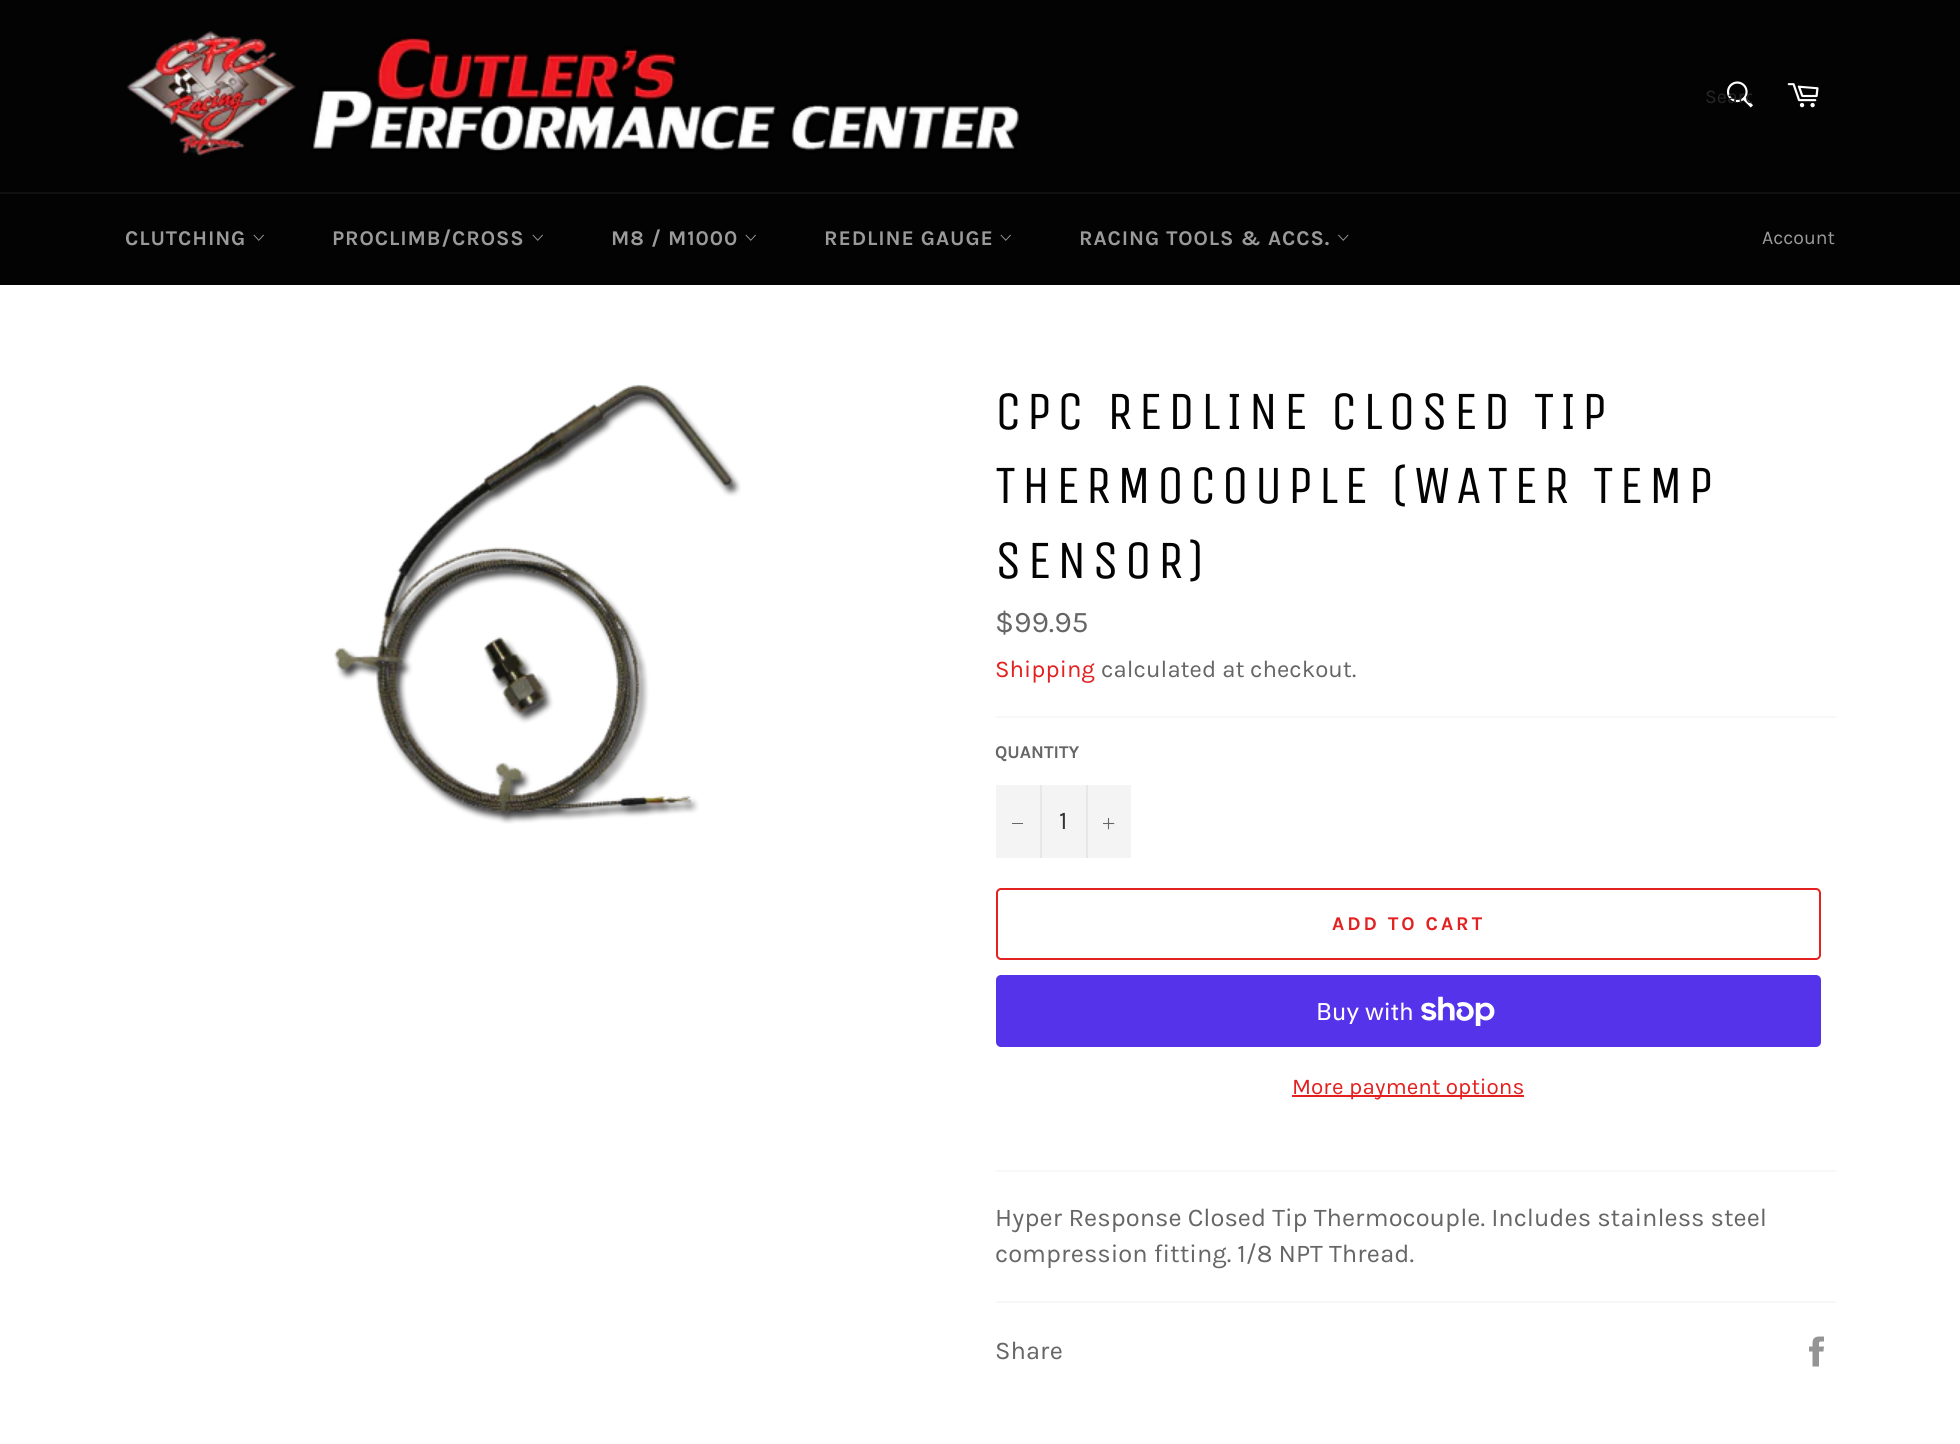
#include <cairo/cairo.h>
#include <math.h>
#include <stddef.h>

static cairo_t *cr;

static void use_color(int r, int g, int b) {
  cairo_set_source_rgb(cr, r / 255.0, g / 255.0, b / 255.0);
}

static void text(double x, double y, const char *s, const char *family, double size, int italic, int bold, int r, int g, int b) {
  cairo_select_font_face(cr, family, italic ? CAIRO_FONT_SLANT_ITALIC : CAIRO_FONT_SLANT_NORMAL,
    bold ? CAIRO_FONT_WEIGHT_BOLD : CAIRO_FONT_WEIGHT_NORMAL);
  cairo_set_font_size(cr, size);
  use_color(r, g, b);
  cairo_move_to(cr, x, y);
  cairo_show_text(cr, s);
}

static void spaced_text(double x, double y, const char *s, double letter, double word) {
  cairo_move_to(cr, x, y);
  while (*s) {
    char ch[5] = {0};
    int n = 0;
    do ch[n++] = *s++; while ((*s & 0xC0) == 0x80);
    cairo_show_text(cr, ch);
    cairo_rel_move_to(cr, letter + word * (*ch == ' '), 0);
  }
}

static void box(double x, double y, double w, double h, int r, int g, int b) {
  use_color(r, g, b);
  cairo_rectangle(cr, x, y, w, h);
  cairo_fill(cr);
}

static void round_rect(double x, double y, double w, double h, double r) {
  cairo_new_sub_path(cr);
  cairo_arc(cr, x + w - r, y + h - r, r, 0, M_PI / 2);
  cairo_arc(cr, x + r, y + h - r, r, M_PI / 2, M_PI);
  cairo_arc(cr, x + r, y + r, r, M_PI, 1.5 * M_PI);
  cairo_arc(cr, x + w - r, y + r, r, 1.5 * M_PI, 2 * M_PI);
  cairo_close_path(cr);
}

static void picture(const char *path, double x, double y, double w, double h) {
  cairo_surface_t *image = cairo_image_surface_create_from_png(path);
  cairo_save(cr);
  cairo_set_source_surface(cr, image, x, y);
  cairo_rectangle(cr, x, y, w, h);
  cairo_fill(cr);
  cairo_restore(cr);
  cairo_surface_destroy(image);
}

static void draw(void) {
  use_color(3, 3, 3);
  cairo_paint(cr);
  picture("img_01.png", 127, 31, 892, 126);
  picture("img_02.png", 1726, 81, 27, 27);
  picture("img_03.png", 1787, 83, 32, 25);
  box(0, 192, 1960, 2, 16, 16, 16);
  picture("img_04.png", 253, 234, 11, 7);
  picture("img_04.png", 532, 234, 11, 7);
  picture("img_04.png", 745, 234, 11, 7);
  picture("img_04.png", 1000, 234, 11, 7);
  picture("img_05.png", 1338, 234, 11, 7);
  box(0, 285, 1960, 1159, 255, 255, 255);
  picture("img_06.png", 334, 384, 407, 440);
  box(996, 716, 840, 2, 247, 247, 247);
  box(996, 785, 135, 73, 244, 244, 244);
  box(1040, 785, 2, 73, 231, 231, 231);
  box(1012, 823, 11, 1, 102, 102, 102);
  box(1086, 785, 2, 73, 231, 231, 231);
  picture("img_07.png", 1103, 818, 12, 12);
  round_rect(997, 889, 823, 70, 4);
  use_color(226, 33, 32);
  cairo_stroke(cr);
  use_color(84, 51, 235);
  round_rect(996, 975, 825, 72, 5);
  cairo_fill(cr);
  picture("img_08.png", 1421, 996, 74, 30);
  box(1292, 1095, 232, 2, 226, 33, 32);
  box(996, 1170, 840, 2, 247, 247, 247);
  box(996, 1301, 840, 2, 247, 247, 247);
  picture("img_09.png", 1809, 1336, 15, 31);
  cairo_save(cr);
  cairo_rectangle(cr, 1704, 86, 48, 22);
  cairo_clip(cr);
  text(1705, 103, "Searc", "Karla", 19.5, 0, 0, 38, 38, 38);
  cairo_restore(cr);
  cairo_select_font_face(cr, "Karla", CAIRO_FONT_SLANT_NORMAL, CAIRO_FONT_WEIGHT_BOLD);
  cairo_set_font_size(cr, 21);
  use_color(154, 154, 154);
  spaced_text(125, 245, "CLUTCHING", 0.9, 0);
  spaced_text(332, 245, "PROCLIMB/CROSS", 0.9, 0);
  spaced_text(611, 245, "M8 / M1000", 0.9, 0);
  spaced_text(824, 245, "REDLINE GAUGE", 0.9, 0);
  spaced_text(1079, 245, "RACING TOOLS & ACCS.", 0.9, 0);
  text(1762, 244, "Account", "Karla", 19.5, 0, 0, 154, 154, 154);
  cairo_select_font_face(cr, "Unica One", CAIRO_FONT_SLANT_NORMAL, CAIRO_FONT_WEIGHT_NORMAL);
  cairo_set_font_size(cr, 54);
  use_color(3, 3, 3);
  spaced_text(995, 429, "CPC REDLINE CLOSED TIP", 5.4, 0);
  spaced_text(995, 503, "THERMOCOUPLE (WATER TEMP", 5.4, 0);
  spaced_text(995, 578, "SENSOR)", 5.4, 0);
  text(995, 632, "$99.95", "Karla", 30, 0, 0, 102, 102, 102);
  text(995, 677, "Shipping", "Karla", 24, 0, 0, 226, 33, 32);
  text(1101, 677, "calculated at checkout.", "Karla", 24, 0, 0, 102, 102, 102);
  text(995, 758, "QUANTITY", "Karla", 18, 0, 1, 102, 102, 102);
  text(1059, 829, "1", "Karla", 25.5, 0, 0, 51, 51, 51);
  cairo_select_font_face(cr, "Karla", CAIRO_FONT_SLANT_NORMAL, CAIRO_FONT_WEIGHT_BOLD);
  cairo_set_font_size(cr, 19.5);
  use_color(226, 33, 32);
  spaced_text(1332, 930, "ADD TO CART", 3, 0);
  text(1316, 1020, "Buy with", "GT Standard", 24, 0, 0, 255, 255, 255);
  text(1292, 1094, "More payment options", "Karla", 22.5, 0, 0, 226, 33, 32);
  text(995, 1226, "Hyper Response Closed Tip Thermocouple. Includes stainless steel", "Karla", 25.5, 0, 0, 102, 102, 102);
  text(995, 1262, "compression fitting. 1/8 NPT Thread.", "Karla", 25.5, 0, 0, 102, 102, 102);
  text(995, 1359, "Share", "Karla", 25.5, 0, 0, 102, 102, 102);
}

int main(void) {
  cairo_surface_t *surface = cairo_image_surface_create(CAIRO_FORMAT_RGB24, 1960, 1444);
  cr = cairo_create(surface);
  cairo_font_options_t *options = cairo_font_options_create();
  cairo_font_options_set_hint_metrics(options, CAIRO_HINT_METRICS_OFF);
  cairo_font_options_set_hint_style(options, CAIRO_HINT_STYLE_NONE);
  cairo_set_font_options(cr, options);
  cairo_set_miter_limit(cr, 4);
  draw();
  cairo_surface_write_to_png(surface, "out.png");
  cairo_font_options_destroy(options);
  cairo_destroy(cr);
  cairo_surface_destroy(surface);
  return 0;
}
